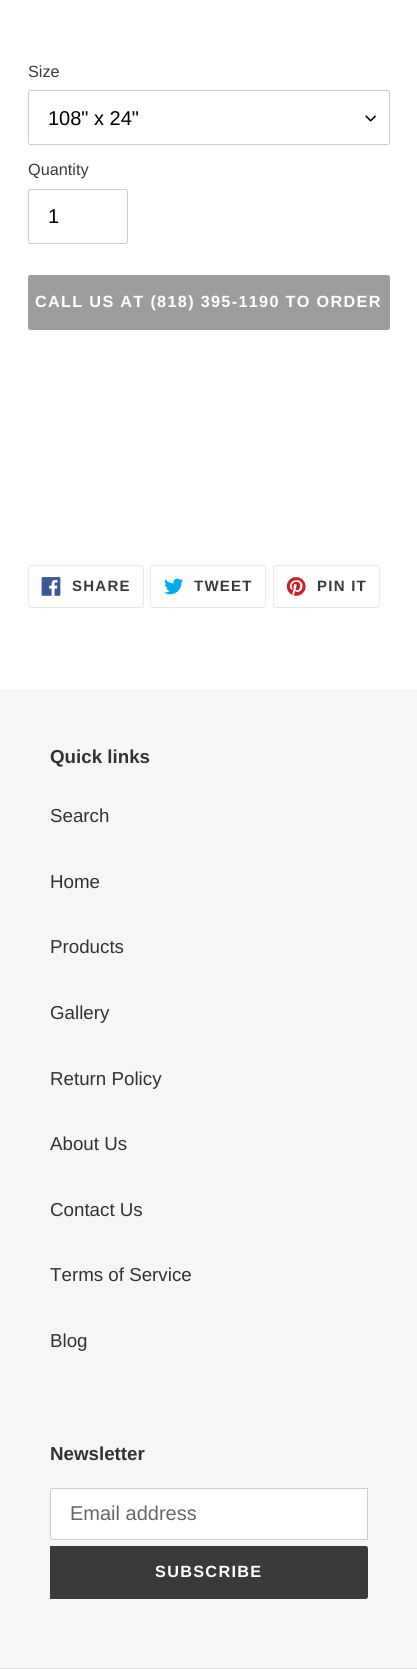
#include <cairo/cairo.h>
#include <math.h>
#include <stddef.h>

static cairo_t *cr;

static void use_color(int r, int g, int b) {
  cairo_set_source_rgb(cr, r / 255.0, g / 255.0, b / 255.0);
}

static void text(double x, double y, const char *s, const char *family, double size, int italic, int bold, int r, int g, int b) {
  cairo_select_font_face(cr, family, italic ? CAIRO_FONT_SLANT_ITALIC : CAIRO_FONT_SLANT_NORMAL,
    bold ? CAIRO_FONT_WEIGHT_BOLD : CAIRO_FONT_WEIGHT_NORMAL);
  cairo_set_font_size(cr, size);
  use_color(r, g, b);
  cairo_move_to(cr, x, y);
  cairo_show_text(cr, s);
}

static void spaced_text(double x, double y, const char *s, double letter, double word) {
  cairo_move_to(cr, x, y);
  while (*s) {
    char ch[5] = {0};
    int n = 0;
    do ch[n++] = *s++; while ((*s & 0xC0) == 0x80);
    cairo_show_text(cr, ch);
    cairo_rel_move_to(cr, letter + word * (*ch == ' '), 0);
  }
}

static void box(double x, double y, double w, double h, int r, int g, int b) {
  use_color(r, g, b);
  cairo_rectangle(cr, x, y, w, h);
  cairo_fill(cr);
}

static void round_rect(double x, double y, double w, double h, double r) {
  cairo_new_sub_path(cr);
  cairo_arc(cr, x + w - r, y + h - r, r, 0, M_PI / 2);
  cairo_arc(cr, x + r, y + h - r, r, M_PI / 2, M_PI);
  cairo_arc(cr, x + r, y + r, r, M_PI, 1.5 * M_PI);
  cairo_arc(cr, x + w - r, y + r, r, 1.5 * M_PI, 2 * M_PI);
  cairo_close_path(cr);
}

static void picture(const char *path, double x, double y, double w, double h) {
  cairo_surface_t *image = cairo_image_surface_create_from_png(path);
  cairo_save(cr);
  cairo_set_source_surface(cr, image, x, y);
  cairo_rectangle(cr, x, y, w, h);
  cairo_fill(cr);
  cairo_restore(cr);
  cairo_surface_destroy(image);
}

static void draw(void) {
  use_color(255, 255, 255);
  cairo_paint(cr);
  picture("img_01.png", 365, 115, 11, 7);
  round_rect(28.5, 90.5, 361, 54, 2);
  use_color(204, 204, 204);
  cairo_set_line_width(cr, 1);
  cairo_stroke(cr);
  round_rect(28.5, 189.5, 99, 54, 2);
  cairo_stroke(cr);
  use_color(157, 157, 157);
  round_rect(28, 275, 362, 55, 2.5);
  cairo_fill(cr);
  round_rect(28.5, 565.5, 115, 42, 2);
  use_color(235, 235, 235);
  cairo_stroke(cr);
  picture("img_02.png", 41, 577, 20, 19);
  round_rect(150.5, 565.5, 115, 42, 2);
  cairo_stroke(cr);
  picture("img_03.png", 164, 578, 20, 17);
  round_rect(273.5, 565.5, 106, 42, 2);
  cairo_stroke(cr);
  picture("img_04.png", 286, 577, 20, 19);
  box(0, 689, 417, 979, 246, 246, 246);
  use_color(255, 255, 255);
  cairo_new_path(cr);
  cairo_move_to(cr, 52.5, 1488.5);
  cairo_line_to(cr, 367.5, 1488.5);
  cairo_line_to(cr, 367.5, 1539.5);
  cairo_line_to(cr, 52.5, 1539.5);
  cairo_curve_to(cr, 51.5, 1539.5, 50.5, 1538.5, 50.5, 1537.5);
  cairo_line_to(cr, 50.5, 1490.5);
  cairo_curve_to(cr, 50.5, 1489.5, 51.5, 1488.5, 52.5, 1488.5);
  cairo_close_path(cr);
  cairo_fill_preserve(cr);
  use_color(204, 204, 204);
  cairo_stroke(cr);
  use_color(58, 58, 58);
  cairo_new_path(cr);
  cairo_move_to(cr, 50, 1546);
  cairo_line_to(cr, 365.5, 1546);
  cairo_curve_to(cr, 367, 1546, 368, 1547, 368, 1548.5);
  cairo_line_to(cr, 368, 1596.5);
  cairo_curve_to(cr, 368, 1598, 367, 1599, 365.5, 1599);
  cairo_line_to(cr, 50, 1599);
  cairo_close_path(cr);
  cairo_fill(cr);
  box(0, 1668, 417, 1, 221, 221, 221);
  text(28, 77, "Size", "Liberation Sans", 16.25, 0, 0, 58, 58, 58);
  text(48, 125, "108\" x 24\"", "Liberation Sans", 20, 0, 0, 0, 0, 0);
  text(28, 175, "Quantity", "Liberation Sans", 16.25, 0, 0, 58, 58, 58);
  text(48, 223, "1", "Liberation Sans", 20, 0, 0, 0, 0, 0);
  cairo_select_font_face(cr, "Liberation Sans", CAIRO_FONT_SLANT_NORMAL, CAIRO_FONT_WEIGHT_BOLD);
  cairo_set_font_size(cr, 16.25);
  use_color(255, 255, 255);
  spaced_text(35, 307, "CALL US AT (818) 395-1190 TO ORDER", 1.3, 0);
  cairo_set_font_size(cr, 15);
  use_color(58, 58, 58);
  spaced_text(72, 591, "SHARE", 1.25, 0);
  spaced_text(194, 591, "TWEET", 1.25, 0);
  spaced_text(317, 591, "PIN IT", 1.25, 0);
  text(50, 763, "Quick links", "Liberation Sans", 18.75, 0, 1, 51, 50, 50);
  text(50, 822, "Search", "Liberation Sans", 18.75, 0, 0, 51, 50, 50);
  text(50, 888, "Home", "Liberation Sans", 18.75, 0, 0, 51, 50, 50);
  text(50, 953, "Products", "Liberation Sans", 18.75, 0, 0, 51, 50, 50);
  text(50, 1019, "Gallery", "Liberation Sans", 18.75, 0, 0, 51, 50, 50);
  text(50, 1085, "Return Policy", "Liberation Sans", 18.75, 0, 0, 51, 50, 50);
  text(50, 1150, "About Us", "Liberation Sans", 18.75, 0, 0, 51, 50, 50);
  text(50, 1216, "Contact Us", "Liberation Sans", 18.75, 0, 0, 51, 50, 50);
  text(50, 1281, "Terms of Service", "Liberation Sans", 18.75, 0, 0, 51, 50, 50);
  text(50, 1347, "Blog", "Liberation Sans", 18.75, 0, 0, 51, 50, 50);
  text(50, 1460, "Newsletter", "Liberation Sans", 18.75, 0, 1, 51, 50, 50);
  text(70, 1520, "Email address", "Liberation Sans", 20, 0, 0, 102, 102, 102);
  cairo_select_font_face(cr, "Liberation Sans", CAIRO_FONT_SLANT_NORMAL, CAIRO_FONT_WEIGHT_BOLD);
  cairo_set_font_size(cr, 16.25);
  use_color(255, 255, 255);
  spaced_text(155, 1577, "SUBSCRIBE", 1.3, 0);
}

int main(void) {
  cairo_surface_t *surface = cairo_image_surface_create(CAIRO_FORMAT_RGB24, 417, 1669);
  cr = cairo_create(surface);
  cairo_font_options_t *options = cairo_font_options_create();
  cairo_font_options_set_hint_metrics(options, CAIRO_HINT_METRICS_OFF);
  cairo_font_options_set_hint_style(options, CAIRO_HINT_STYLE_NONE);
  cairo_set_font_options(cr, options);
  cairo_set_miter_limit(cr, 4);
  draw();
  cairo_surface_write_to_png(surface, "out.png");
  cairo_font_options_destroy(options);
  cairo_destroy(cr);
  cairo_surface_destroy(surface);
  return 0;
}
